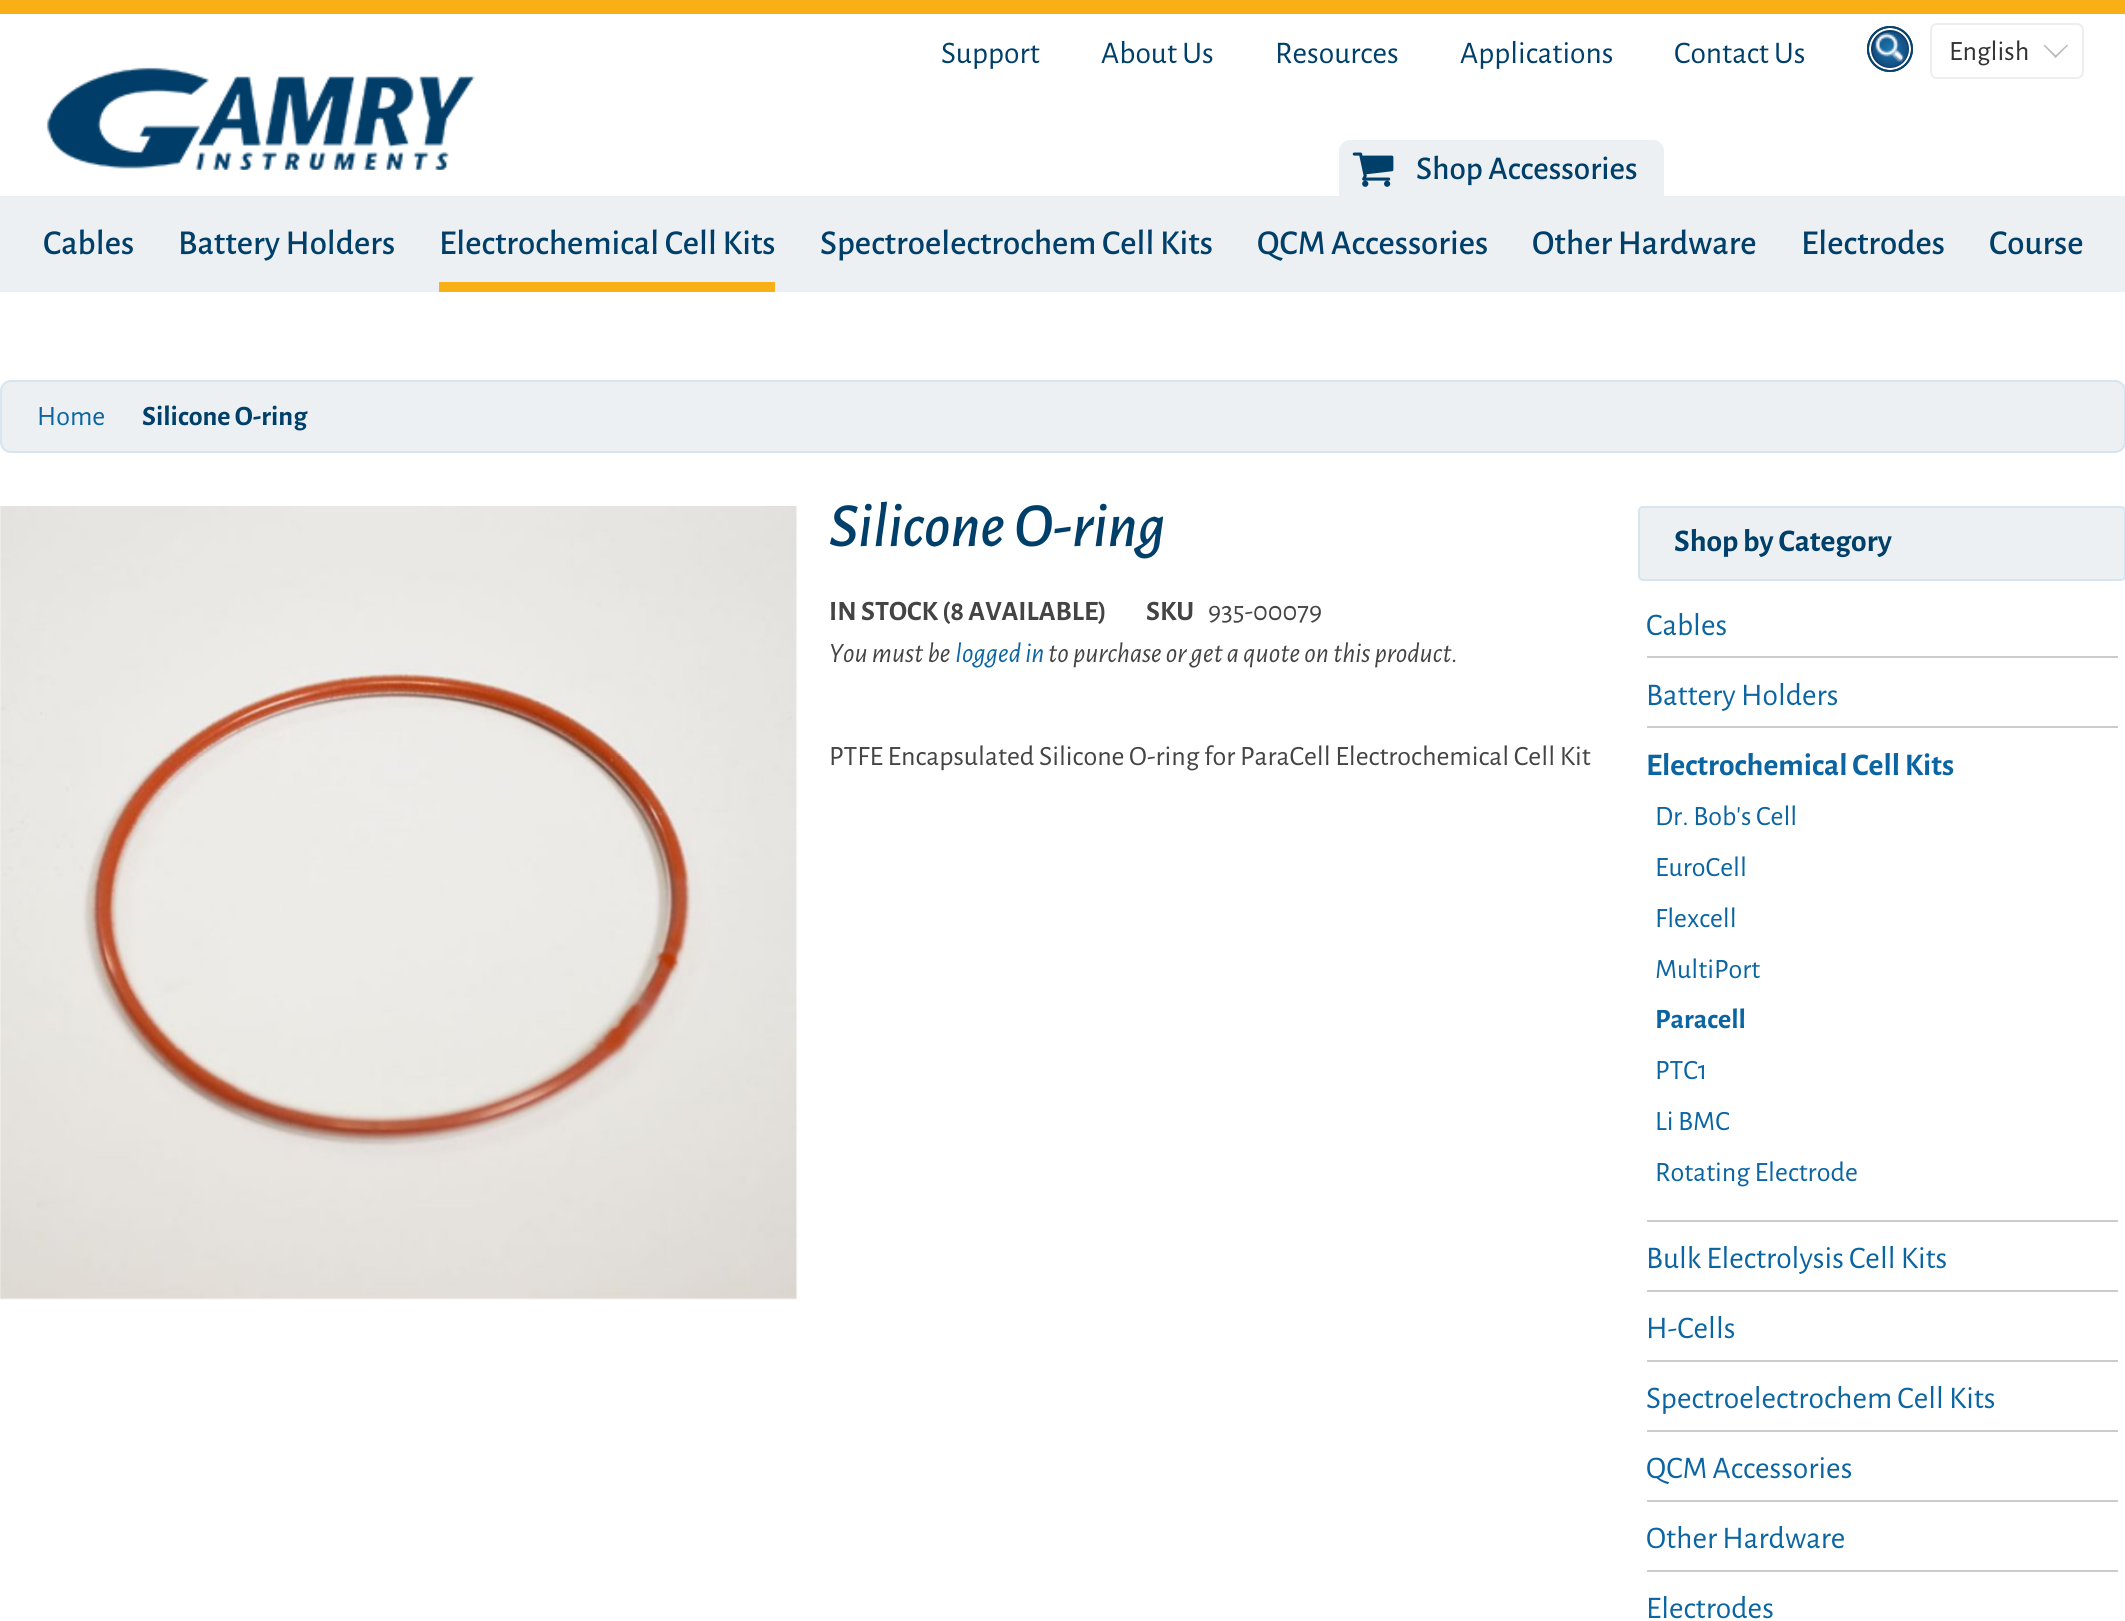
#include <cairo/cairo.h>
#include <math.h>
#include <stddef.h>

static cairo_t *cr;

static void use_color(int r, int g, int b) {
  cairo_set_source_rgb(cr, r / 255.0, g / 255.0, b / 255.0);
}

static void text(double x, double y, const char *s, const char *family, double size, int italic, int bold, int r, int g, int b) {
  cairo_select_font_face(cr, family, italic ? CAIRO_FONT_SLANT_ITALIC : CAIRO_FONT_SLANT_NORMAL,
    bold ? CAIRO_FONT_WEIGHT_BOLD : CAIRO_FONT_WEIGHT_NORMAL);
  cairo_set_font_size(cr, size);
  use_color(r, g, b);
  cairo_move_to(cr, x, y);
  cairo_show_text(cr, s);
}

static void box(double x, double y, double w, double h, int r, int g, int b) {
  use_color(r, g, b);
  cairo_rectangle(cr, x, y, w, h);
  cairo_fill(cr);
}

static void round_rect(double x, double y, double w, double h, double r) {
  cairo_new_sub_path(cr);
  cairo_arc(cr, x + w - r, y + h - r, r, 0, M_PI / 2);
  cairo_arc(cr, x + r, y + h - r, r, M_PI / 2, M_PI);
  cairo_arc(cr, x + r, y + r, r, M_PI, 1.5 * M_PI);
  cairo_arc(cr, x + w - r, y + r, r, 1.5 * M_PI, 2 * M_PI);
  cairo_close_path(cr);
}

static void picture(const char *path, double x, double y, double w, double h) {
  cairo_surface_t *image = cairo_image_surface_create_from_png(path);
  cairo_save(cr);
  cairo_set_source_surface(cr, image, x, y);
  cairo_rectangle(cr, x, y, w, h);
  cairo_fill(cr);
  cairo_restore(cr);
  cairo_surface_destroy(image);
}

static void draw(void) {
  cairo_pattern_t *gradient;
  use_color(255, 255, 255);
  cairo_paint(cr);
  box(0, 0, 2125, 14, 248, 176, 22);
  use_color(236, 240, 242);
  cairo_new_path(cr);
  cairo_move_to(cr, 1350, 140);
  cairo_line_to(cr, 1653, 140);
  cairo_curve_to(cr, 1659, 140, 1664, 145, 1664, 151);
  cairo_line_to(cr, 1664, 196);
  cairo_line_to(cr, 1339, 196);
  cairo_line_to(cr, 1339, 151);
  cairo_curve_to(cr, 1339, 145, 1344, 140, 1350, 140);
  cairo_close_path(cr);
  cairo_fill(cr);
  picture("img_01.png", 1352, 152, 42, 35);
  use_color(15, 60, 107);
  cairo_arc(cr, 1890, 49, 23, 0, 2 * M_PI);
  cairo_fill(cr);
  cairo_arc(cr, 1890, 49, 20, 0, 2 * M_PI);
  use_color(255, 255, 255);
  cairo_stroke(cr);
  cairo_arc(cr, 1890, 49, 22, 0, 2 * M_PI);
  use_color(7, 68, 109);
  cairo_stroke(cr);
  gradient = cairo_pattern_create_radial(1890, 49, 0, 1890, 49, 25);
  cairo_pattern_add_color_stop_rgba(gradient, 0, 0.114, 0.467, 0.698, 1);
  cairo_pattern_add_color_stop_rgba(gradient, 1, 0.059, 0.235, 0.42, 1);
  cairo_set_source(cr, gradient);
  cairo_pattern_destroy(gradient);
  cairo_arc(cr, 1890.5, 49.5, 17.5, 0, 2 * M_PI);
  cairo_fill(cr);
  picture("img_02.png", 1875, 32, 30, 30);
  round_rect(1931, 24, 152, 54, 6);
  use_color(238, 238, 238);
  cairo_stroke(cr);
  use_color(187, 187, 187);
  cairo_new_path(cr);
  cairo_move_to(cr, 2067, 44.5);
  cairo_line_to(cr, 2068, 45.5);
  cairo_line_to(cr, 2055.5, 58);
  cairo_line_to(cr, 2054.5, 56.5);
  cairo_close_path(cr);
  cairo_fill(cr);
  cairo_new_path(cr);
  cairo_move_to(cr, 2044.5, 44.5);
  cairo_line_to(cr, 2057, 56.5);
  cairo_line_to(cr, 2055.5, 58);
  cairo_line_to(cr, 2043.5, 45.5);
  cairo_close_path(cr);
  cairo_fill(cr);
  picture("img_03.png", 46, 67, 429, 103);
  box(0, 196, 2125, 96, 236, 240, 242);
  box(439, 282, 336, 10, 248, 176, 22);
  use_color(236, 240, 242);
  round_rect(1, 381, 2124, 71, 10);
  cairo_fill_preserve(cr);
  use_color(214, 229, 240);
  cairo_stroke(cr);
  picture("img_04.png", 0, 506, 798, 794);
  use_color(236, 240, 242);
  round_rect(1639, 507, 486, 73, 4);
  cairo_fill_preserve(cr);
  use_color(214, 229, 240);
  cairo_stroke(cr);
  box(1647, 656, 471, 2, 204, 204, 204);
  box(1647, 726, 471, 2, 204, 204, 204);
  box(1647, 1220, 471, 2, 204, 204, 204);
  box(1647, 1290, 471, 2, 204, 204, 204);
  box(1647, 1360, 471, 2, 204, 204, 204);
  box(1647, 1430, 471, 2, 204, 204, 204);
  box(1647, 1500, 471, 2, 204, 204, 204);
  box(1647, 1570, 471, 2, 204, 204, 204);
  text(941, 63, "Support", "Alegreya Sans", 31.5, 0, 0, 0, 63, 105);
  text(1101, 63, "About Us", "Alegreya Sans", 31.5, 0, 0, 0, 63, 105);
  text(1275, 63, "Resources", "Alegreya Sans", 31.5, 0, 0, 0, 63, 105);
  text(1460, 63, "Applications", "Alegreya Sans", 31.5, 0, 0, 0, 63, 105);
  text(1674, 63, "Contact Us", "Alegreya Sans", 31.5, 0, 0, 0, 63, 105);
  text(1416, 179, "Shop Accessories", "Alegreya Sans Medium", 33.25, 0, 0, 0, 63, 105);
  text(1949, 60, "English", "Alegreya Sans", 28, 0, 0, 51, 51, 51);
  text(43, 254, "Cables", "Alegreya Sans Medium", 35, 0, 0, 0, 63, 105);
  text(178, 254, "Battery Holders", "Alegreya Sans Medium", 35, 0, 0, 0, 63, 105);
  text(439, 254, "Electrochemical Cell Kits", "Alegreya Sans Medium", 35, 0, 0, 0, 63, 105);
  text(820, 254, "Spectroelectrochem Cell Kits", "Alegreya Sans Medium", 35, 0, 0, 0, 63, 105);
  text(1257, 254, "QCM Accessories", "Alegreya Sans Medium", 35, 0, 0, 0, 63, 105);
  text(1532, 254, "Other Hardware", "Alegreya Sans Medium", 35, 0, 0, 0, 63, 105);
  text(1801, 254, "Electrodes", "Alegreya Sans Medium", 35, 0, 0, 0, 63, 105);
  text(1989, 254, "Course", "Alegreya Sans Medium", 35, 0, 0, 0, 63, 105);
  text(37, 425, "Home", "Alegreya Sans", 28, 0, 0, 10, 101, 162);
  text(142, 425, "Silicone O-ring", "Alegreya Sans", 28, 0, 1, 0, 63, 105);
  text(829, 546, "Silicone O-ring", "Alegreya Sans Medium", 63, 1, 0, 0, 63, 105);
  text(829, 620, "IN STOCK (8 AVAILABLE)", "Alegreya Sans", 28, 0, 1, 68, 68, 68);
  text(1146, 620, "SKU", "Alegreya Sans", 28, 0, 1, 68, 68, 68);
  text(1208, 620, "935-00079", "Alegreya Sans", 28, 0, 0, 68, 68, 68);
  text(829, 662, "You must be", "Alegreya Sans", 28, 1, 0, 68, 68, 68);
  text(955, 662, "logged in", "Alegreya Sans", 28, 1, 0, 10, 101, 162);
  text(1048, 662, "to purchase or get a quote on this product.", "Alegreya Sans", 28, 1, 0, 68, 68, 68);
  text(829, 765, "PTFE Encapsulated Silicone O-ring for ParaCell Electrochemical Cell Kit", "Alegreya Sans", 28, 0, 0, 68, 68, 68);
  text(1674, 551, "Shop by Category", "Alegreya Sans", 31.5, 0, 1, 0, 63, 105);
  text(1646, 635, "Cables", "Alegreya Sans", 31.5, 0, 0, 10, 101, 162);
  text(1646, 705, "Battery Holders", "Alegreya Sans", 31.5, 0, 0, 10, 101, 162);
  text(1646, 775, "Electrochemical Cell Kits", "Alegreya Sans", 31.5, 0, 1, 10, 101, 162);
  text(1655, 825, "Dr. Bob's Cell", "Alegreya Sans", 28, 0, 0, 10, 101, 162);
  text(1655, 876, "EuroCell", "Alegreya Sans", 28, 0, 0, 10, 101, 162);
  text(1655, 927, "Flexcell", "Alegreya Sans", 28, 0, 0, 10, 101, 162);
  text(1655, 978, "MultiPort", "Alegreya Sans", 28, 0, 0, 10, 101, 162);
  text(1655, 1028, "Paracell", "Alegreya Sans", 28, 0, 1, 10, 101, 162);
  text(1655, 1079, "PTC1", "Alegreya Sans", 28, 0, 0, 10, 101, 162);
  text(1655, 1130, "Li BMC", "Alegreya Sans", 28, 0, 0, 10, 101, 162);
  text(1655, 1181, "Rotating Electrode", "Alegreya Sans", 28, 0, 0, 10, 101, 162);
  text(1646, 1268, "Bulk Electrolysis Cell Kits", "Alegreya Sans", 31.5, 0, 0, 10, 101, 162);
  text(1646, 1338, "H-Cells", "Alegreya Sans", 31.5, 0, 0, 10, 101, 162);
  text(1646, 1408, "Spectroelectrochem Cell Kits", "Alegreya Sans", 31.5, 0, 0, 10, 101, 162);
  text(1646, 1478, "QCM Accessories", "Alegreya Sans", 31.5, 0, 0, 10, 101, 162);
  text(1646, 1548, "Other Hardware", "Alegreya Sans", 31.5, 0, 0, 10, 101, 162);
  text(1646, 1618, "Electrodes", "Alegreya Sans", 31.5, 0, 0, 10, 101, 162);
}

int main(void) {
  cairo_surface_t *surface = cairo_image_surface_create(CAIRO_FORMAT_RGB24, 2125, 1621);
  cr = cairo_create(surface);
  cairo_font_options_t *options = cairo_font_options_create();
  cairo_font_options_set_hint_metrics(options, CAIRO_HINT_METRICS_OFF);
  cairo_font_options_set_hint_style(options, CAIRO_HINT_STYLE_NONE);
  cairo_set_font_options(cr, options);
  cairo_set_miter_limit(cr, 4);
  draw();
  cairo_surface_write_to_png(surface, "out.png");
  cairo_font_options_destroy(options);
  cairo_destroy(cr);
  cairo_surface_destroy(surface);
  return 0;
}
